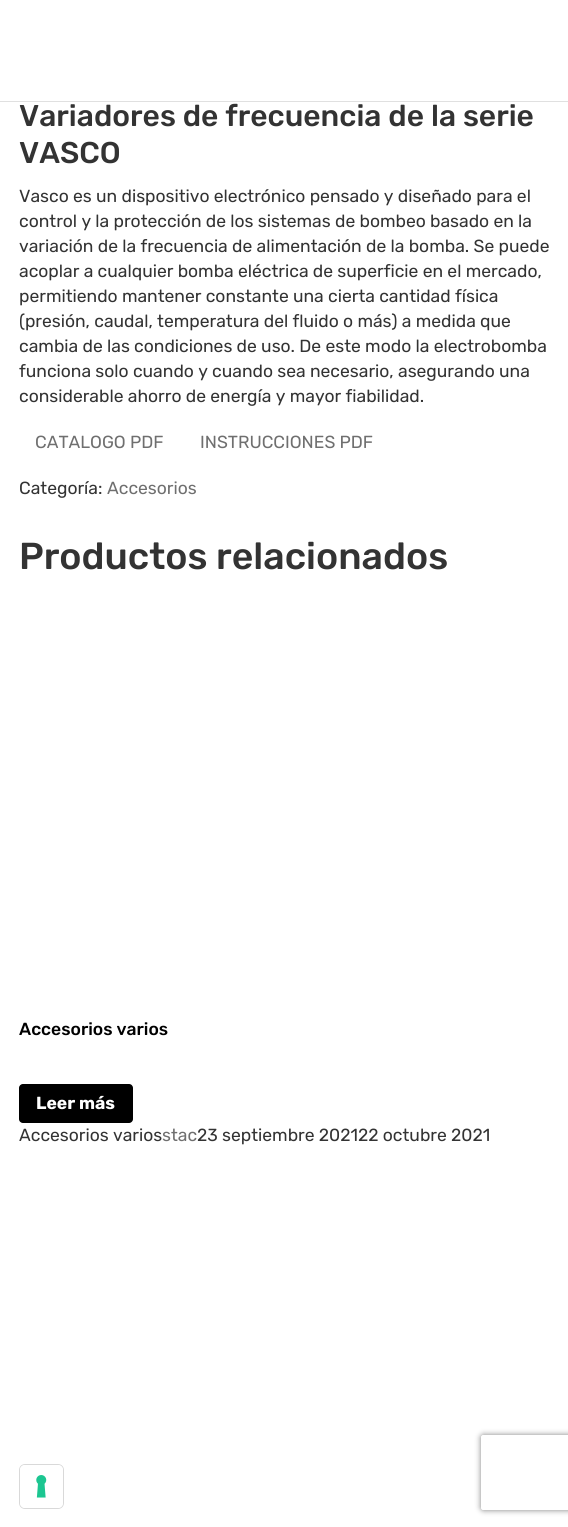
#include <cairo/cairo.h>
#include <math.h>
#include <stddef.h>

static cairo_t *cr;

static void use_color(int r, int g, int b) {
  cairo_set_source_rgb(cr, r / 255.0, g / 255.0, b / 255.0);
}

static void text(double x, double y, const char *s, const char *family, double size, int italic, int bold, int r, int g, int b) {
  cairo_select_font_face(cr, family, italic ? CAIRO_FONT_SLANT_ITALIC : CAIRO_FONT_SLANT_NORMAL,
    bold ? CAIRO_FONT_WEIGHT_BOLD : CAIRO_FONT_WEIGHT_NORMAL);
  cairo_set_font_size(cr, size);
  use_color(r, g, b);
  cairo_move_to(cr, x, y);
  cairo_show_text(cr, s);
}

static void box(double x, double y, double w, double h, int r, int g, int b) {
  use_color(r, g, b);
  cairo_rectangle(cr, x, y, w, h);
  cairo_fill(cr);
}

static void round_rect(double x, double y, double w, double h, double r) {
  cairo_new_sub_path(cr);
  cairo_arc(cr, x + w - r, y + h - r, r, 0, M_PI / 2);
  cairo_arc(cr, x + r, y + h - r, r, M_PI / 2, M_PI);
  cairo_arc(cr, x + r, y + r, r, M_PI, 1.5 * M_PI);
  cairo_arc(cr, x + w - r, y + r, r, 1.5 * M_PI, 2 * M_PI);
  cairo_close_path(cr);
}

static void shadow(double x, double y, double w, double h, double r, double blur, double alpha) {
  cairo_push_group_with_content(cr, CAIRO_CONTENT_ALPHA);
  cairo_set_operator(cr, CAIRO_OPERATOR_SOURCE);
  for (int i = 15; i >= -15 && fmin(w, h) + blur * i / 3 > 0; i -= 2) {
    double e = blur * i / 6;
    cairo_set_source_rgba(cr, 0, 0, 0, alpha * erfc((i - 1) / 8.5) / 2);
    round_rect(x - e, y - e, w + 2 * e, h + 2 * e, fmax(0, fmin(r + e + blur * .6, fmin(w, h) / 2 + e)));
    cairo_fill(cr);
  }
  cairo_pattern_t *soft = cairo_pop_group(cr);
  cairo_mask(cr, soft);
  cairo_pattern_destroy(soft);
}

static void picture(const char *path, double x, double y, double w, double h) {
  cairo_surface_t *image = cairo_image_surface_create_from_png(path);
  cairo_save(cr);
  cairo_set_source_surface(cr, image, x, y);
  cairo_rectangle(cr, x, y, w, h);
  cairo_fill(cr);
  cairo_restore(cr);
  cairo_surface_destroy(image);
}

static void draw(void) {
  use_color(255, 255, 255);
  cairo_paint(cr);
  box(0, 101, 568, 1, 224, 224, 224);
  use_color(0, 0, 0);
  round_rect(19, 1084, 114, 39, 4);
  cairo_fill(cr);
  round_rect(19.5, 1464.5, 44, 44, 5.5);
  use_color(217, 217, 217);
  cairo_set_line_width(cr, 1);
  cairo_stroke(cr);
  use_color(255, 255, 255);
  round_rect(20, 1465, 43, 43, 5);
  cairo_fill(cr);
  picture("img_01.png", 36, 1475, 11, 23);
  cairo_save(cr);
  cairo_set_fill_rule(cr, CAIRO_FILL_RULE_EVEN_ODD);
  cairo_new_path(cr);
  cairo_move_to(cr, 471, 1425);
  cairo_line_to(cr, 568, 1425);
  cairo_line_to(cr, 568, 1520);
  cairo_line_to(cr, 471, 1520);
  cairo_close_path(cr);
  cairo_move_to(cr, 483.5, 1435);
  cairo_line_to(cr, 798.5, 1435);
  cairo_curve_to(cr, 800, 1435, 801, 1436, 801, 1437.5);
  cairo_line_to(cr, 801, 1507.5);
  cairo_curve_to(cr, 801, 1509, 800, 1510, 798.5, 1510);
  cairo_line_to(cr, 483.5, 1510);
  cairo_curve_to(cr, 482, 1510, 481, 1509, 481, 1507.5);
  cairo_line_to(cr, 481, 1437.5);
  cairo_curve_to(cr, 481, 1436, 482, 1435, 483.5, 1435);
  cairo_close_path(cr);
  cairo_clip(cr);
  use_color(128, 128, 128);
  shadow(481, 1435, 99, 75, 2.5, 3, 1);
  cairo_restore(cr);
  text(19, 126, "Variadores de frecuencia de la serie", "Rubik Medium", 30, 0, 0, 51, 51, 51);
  text(19, 163, "VASCO", "Rubik Medium", 30, 0, 0, 51, 51, 51);
  text(19, 202, "Vasco es un dispositivo electrónico pensado y diseñado para el", "Rubik", 17.5, 0, 0, 51, 51, 51);
  text(19, 227, "control y la protección de los sistemas de bombeo basado en la", "Rubik", 17.5, 0, 0, 51, 51, 51);
  text(19, 252, "variación de la frecuencia de alimentación de la bomba. Se puede", "Rubik", 17.5, 0, 0, 51, 51, 51);
  text(19, 277, "acoplar a cualquier bomba eléctrica de superficie en el mercado,", "Rubik", 17.5, 0, 0, 51, 51, 51);
  text(19, 302, "permitiendo mantener constante una cierta cantidad física", "Rubik", 17.5, 0, 0, 51, 51, 51);
  text(19, 327, "(presión, caudal, temperatura del fluido o más) a medida que", "Rubik", 17.5, 0, 0, 51, 51, 51);
  text(19, 352, "cambia de las condiciones de uso. De este modo la electrobomba", "Rubik", 17.5, 0, 0, 51, 51, 51);
  text(19, 377, "funciona solo cuando y cuando sea necesario, asegurando una", "Rubik", 17.5, 0, 0, 51, 51, 51);
  text(19, 402, "considerable ahorro de energía y mayor fiabilidad.", "Rubik", 17.5, 0, 0, 51, 51, 51);
  text(35, 448, "CATALOGO PDF", "Rubik", 17.5, 0, 0, 111, 111, 111);
  text(200, 448, "INSTRUCCIONES PDF", "Rubik", 17.5, 0, 0, 111, 111, 111);
  text(19, 494, "Categoría:", "Rubik", 17.5, 0, 0, 51, 51, 51);
  text(107, 494, "Accesorios", "Rubik", 17.5, 0, 0, 111, 111, 111);
  text(19, 569, "Productos relacionados", "Rubik Medium", 37.5, 0, 0, 51, 51, 51);
  text(19, 1035, "Accesorios varios", "Rubik Medium", 17.5, 0, 0, 0, 0, 0);
  text(36, 1109, "Leer más", "Rubik", 17.5, 0, 1, 255, 255, 255);
  text(19, 1141, "Accesorios varios", "Rubik", 17.5, 0, 0, 51, 51, 51);
  text(162, 1141, "stac", "Rubik", 17.5, 0, 0, 111, 111, 111);
  text(197, 1141, "23 septiembre 202122 octubre 2021", "Rubik", 17.5, 0, 0, 51, 51, 51);
}

int main(void) {
  cairo_surface_t *surface = cairo_image_surface_create(CAIRO_FORMAT_RGB24, 568, 1527);
  cr = cairo_create(surface);
  cairo_font_options_t *options = cairo_font_options_create();
  cairo_font_options_set_hint_metrics(options, CAIRO_HINT_METRICS_OFF);
  cairo_font_options_set_hint_style(options, CAIRO_HINT_STYLE_NONE);
  cairo_set_font_options(cr, options);
  cairo_set_miter_limit(cr, 4);
  draw();
  cairo_surface_write_to_png(surface, "out.png");
  cairo_font_options_destroy(options);
  cairo_destroy(cr);
  cairo_surface_destroy(surface);
  return 0;
}
